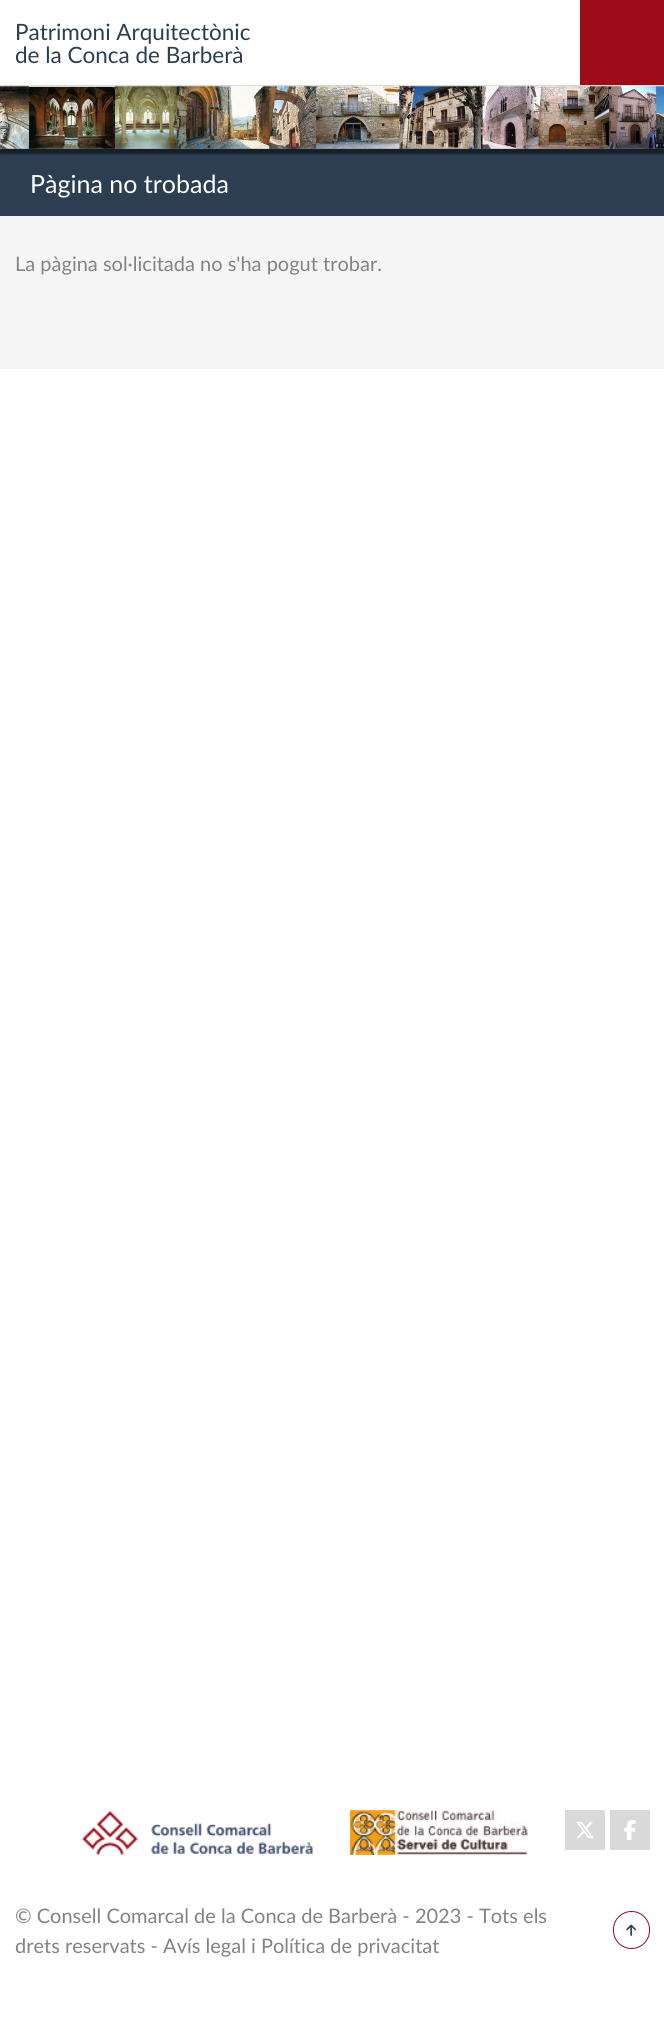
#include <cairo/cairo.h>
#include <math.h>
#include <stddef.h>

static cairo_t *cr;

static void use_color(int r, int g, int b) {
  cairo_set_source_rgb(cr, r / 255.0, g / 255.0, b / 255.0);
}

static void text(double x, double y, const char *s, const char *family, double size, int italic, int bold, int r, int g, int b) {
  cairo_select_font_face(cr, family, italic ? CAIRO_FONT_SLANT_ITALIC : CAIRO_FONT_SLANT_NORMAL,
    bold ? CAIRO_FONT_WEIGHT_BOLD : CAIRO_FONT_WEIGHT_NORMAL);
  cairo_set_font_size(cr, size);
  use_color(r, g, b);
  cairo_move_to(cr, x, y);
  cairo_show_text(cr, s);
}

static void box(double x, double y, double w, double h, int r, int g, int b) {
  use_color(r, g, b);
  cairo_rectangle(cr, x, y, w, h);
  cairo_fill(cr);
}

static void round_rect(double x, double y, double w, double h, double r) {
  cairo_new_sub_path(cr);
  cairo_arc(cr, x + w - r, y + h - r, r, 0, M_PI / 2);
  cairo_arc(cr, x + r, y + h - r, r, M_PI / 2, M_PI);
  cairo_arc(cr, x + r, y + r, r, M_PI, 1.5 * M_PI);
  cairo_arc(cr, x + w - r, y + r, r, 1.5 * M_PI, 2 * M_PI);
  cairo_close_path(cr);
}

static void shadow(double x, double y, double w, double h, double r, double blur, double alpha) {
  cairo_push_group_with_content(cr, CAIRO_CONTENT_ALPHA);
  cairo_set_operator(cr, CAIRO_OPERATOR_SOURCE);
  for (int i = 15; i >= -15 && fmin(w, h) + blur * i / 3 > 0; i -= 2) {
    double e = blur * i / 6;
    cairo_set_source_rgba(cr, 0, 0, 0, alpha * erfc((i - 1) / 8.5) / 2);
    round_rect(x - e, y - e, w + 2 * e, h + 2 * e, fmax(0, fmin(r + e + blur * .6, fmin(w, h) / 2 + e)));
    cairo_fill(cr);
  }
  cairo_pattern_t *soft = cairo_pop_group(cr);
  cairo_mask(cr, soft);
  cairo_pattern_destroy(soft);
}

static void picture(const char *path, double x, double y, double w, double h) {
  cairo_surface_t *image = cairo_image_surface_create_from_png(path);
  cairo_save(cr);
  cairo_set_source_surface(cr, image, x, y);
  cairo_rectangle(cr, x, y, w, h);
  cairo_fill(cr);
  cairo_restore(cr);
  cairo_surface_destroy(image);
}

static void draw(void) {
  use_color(255, 255, 255);
  cairo_paint(cr);
  box(0, 85, 664, 1, 220, 218, 206);
  box(580, 0, 84, 85, 156, 13, 25);
  box(0, 149, 664, 67, 45, 62, 82);
  use_color(0, 0, 0);
  shadow(0, 91, 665, 63, 0, 1, 0.5);
  picture("img_01.png", 0, 86, 664, 63);
  box(0, 216, 664, 153, 245, 245, 245);
  picture("img_02.png", 82, 1811, 231, 44);
  picture("img_03.png", 350, 1810, 178, 45);
  box(565, 1810, 40, 40, 217, 217, 217);
  picture("img_04.png", 576, 1821, 18, 18);
  box(610, 1810, 40, 40, 217, 217, 217);
  picture("img_05.png", 624, 1820, 12, 20);
  picture("img_06.png", 626, 1924, 10, 12);
  round_rect(613.5, 1911.5, 36, 37, 18);
  use_color(156, 13, 25);
  cairo_set_line_width(cr, 1);
  cairo_stroke(cr);
  text(15, 40, "Patrimoni Arquitectònic", "Lato", 22.5, 0, 0, 45, 62, 82);
  text(15, 63, "de la Conca de Barberà", "Lato", 22.5, 0, 0, 45, 62, 82);
  text(30, 193, "Pàgina no trobada", "Lato", 25, 0, 0, 255, 255, 255);
  text(15, 271, "La pàgina sol·licitada no s'ha pogut trobar.", "Lato", 20, 0, 0, 131, 131, 131);
  text(15, 1923, "© Consell Comarcal de la Conca de Barberà - 2023 - Tots els", "Lato", 20, 0, 0, 131, 131, 131);
  text(15, 1953, "drets reservats - Avís legal i Política de privacitat", "Lato", 20, 0, 0, 131, 131, 131);
}

int main(void) {
  cairo_surface_t *surface = cairo_image_surface_create(CAIRO_FORMAT_RGB24, 664, 2019);
  cr = cairo_create(surface);
  cairo_font_options_t *options = cairo_font_options_create();
  cairo_font_options_set_hint_metrics(options, CAIRO_HINT_METRICS_OFF);
  cairo_font_options_set_hint_style(options, CAIRO_HINT_STYLE_NONE);
  cairo_set_font_options(cr, options);
  cairo_set_miter_limit(cr, 4);
  draw();
  cairo_surface_write_to_png(surface, "out.png");
  cairo_font_options_destroy(options);
  cairo_destroy(cr);
  cairo_surface_destroy(surface);
  return 0;
}
